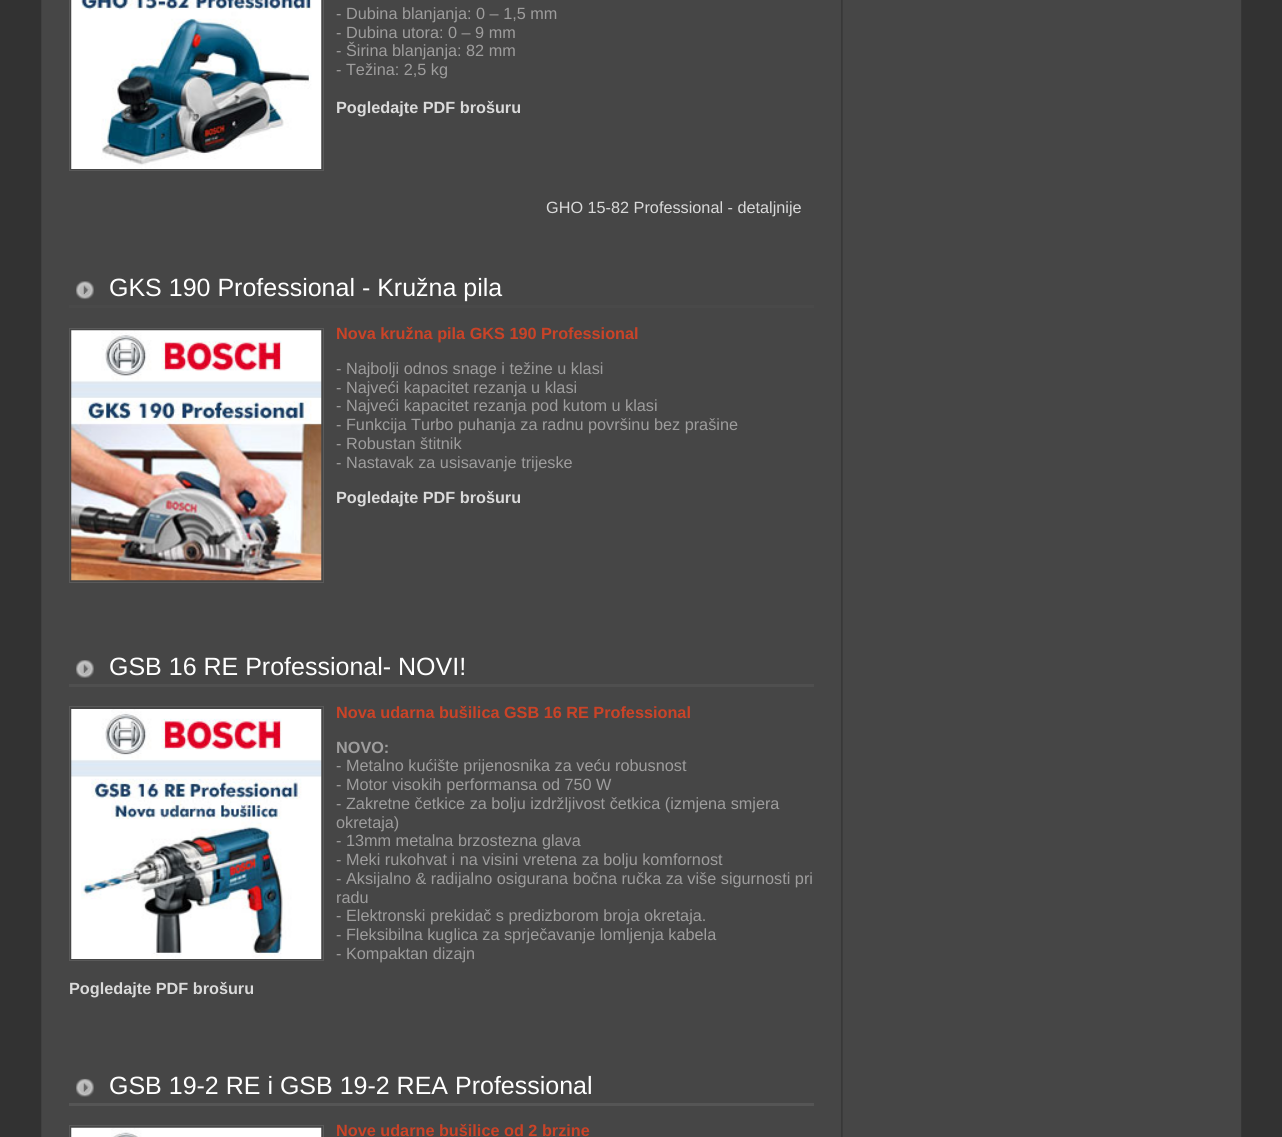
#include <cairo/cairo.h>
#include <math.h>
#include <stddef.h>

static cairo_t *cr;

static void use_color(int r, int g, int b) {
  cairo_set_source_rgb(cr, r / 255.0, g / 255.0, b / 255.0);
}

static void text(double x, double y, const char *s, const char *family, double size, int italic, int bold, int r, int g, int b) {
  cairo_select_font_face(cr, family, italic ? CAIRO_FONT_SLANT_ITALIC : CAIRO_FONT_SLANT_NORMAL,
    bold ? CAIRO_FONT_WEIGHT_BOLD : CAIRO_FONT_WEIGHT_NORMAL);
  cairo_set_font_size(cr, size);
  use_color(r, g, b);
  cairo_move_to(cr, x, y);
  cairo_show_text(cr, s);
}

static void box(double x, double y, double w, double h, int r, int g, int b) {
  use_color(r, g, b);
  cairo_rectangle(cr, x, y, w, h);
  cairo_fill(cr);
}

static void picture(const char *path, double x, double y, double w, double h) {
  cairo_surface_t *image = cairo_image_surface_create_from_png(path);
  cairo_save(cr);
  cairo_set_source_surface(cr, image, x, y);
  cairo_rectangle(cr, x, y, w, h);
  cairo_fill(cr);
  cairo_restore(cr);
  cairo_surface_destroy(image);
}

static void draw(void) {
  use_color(50, 50, 50);
  cairo_paint(cr);
  picture("img_01.png", 41, 0, 1201, 1137);
  cairo_rectangle(cr, 69.5, -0.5, 254, 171);
  use_color(90, 90, 90);
  cairo_set_line_width(cr, 1);
  cairo_stroke(cr);
  picture("img_02.png", 71, 0, 251, 169);
  box(69, 305, 745, 3, 73, 73, 73);
  picture("img_03.png", 76, 281, 18, 19);
  cairo_rectangle(cr, 69.5, 328.5, 254, 254);
  use_color(90, 90, 90);
  cairo_stroke(cr);
  picture("img_04.png", 71, 330, 251, 251);
  box(69, 684, 745, 3, 79, 79, 79);
  picture("img_05.png", 76, 660, 18, 18);
  cairo_rectangle(cr, 69.5, 706.5, 254, 254);
  use_color(90, 90, 90);
  cairo_stroke(cr);
  picture("img_06.png", 71, 709, 251, 250);
  box(69, 1103, 745, 3, 85, 85, 85);
  picture("img_07.png", 76, 1078, 18, 19);
  cairo_rectangle(cr, 69.5, 1125.5, 254, 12);
  use_color(90, 90, 90);
  cairo_stroke(cr);
  picture("img_08.png", 71, 1127, 251, 10);
  text(336, 19, "- Dubina blanjanja: 0 – 1,5 mm", "Liberation Sans", 16.25, 0, 0, 158, 157, 157);
  text(336, 38, "- Dubina utora: 0 – 9 mm", "Liberation Sans", 16.25, 0, 0, 158, 157, 157);
  text(336, 56, "- Širina blanjanja: 82 mm", "Liberation Sans", 16.25, 0, 0, 158, 157, 157);
  text(336, 75, "- Težina: 2,5 kg", "Liberation Sans", 16.25, 0, 0, 158, 157, 157);
  text(336, 113, "Pogledajte PDF brošuru", "Liberation Sans", 16.25, 0, 1, 218, 218, 218);
  text(546, 213, "GHO 15-82 Professional - detaljnije", "Liberation Sans", 16.25, 0, 0, 218, 218, 218);
  text(109, 296, "GKS 190 Professional - Kružna pila", "Liberation Sans", 25, 0, 0, 255, 255, 255);
  text(336, 339, "Nova kružna pila GKS 190 Professional", "Liberation Sans", 16.25, 0, 1, 202, 67, 39);
  text(336, 374, "- Najbolji odnos snage i težine u klasi", "Liberation Sans", 16.25, 0, 0, 158, 157, 157);
  text(336, 393, "- Najveći kapacitet rezanja u klasi", "Liberation Sans", 16.25, 0, 0, 158, 157, 157);
  text(336, 411, "- Najveći kapacitet rezanja pod kutom u klasi", "Liberation Sans", 16.25, 0, 0, 158, 157, 157);
  text(336, 430, "- Funkcija Turbo puhanja za radnu površinu bez prašine", "Liberation Sans", 16.25, 0, 0, 158, 157, 157);
  text(336, 449, "- Robustan štitnik", "Liberation Sans", 16.25, 0, 0, 158, 157, 157);
  text(336, 468, "- Nastavak za usisavanje trijeske", "Liberation Sans", 16.25, 0, 0, 158, 157, 157);
  text(336, 503, "Pogledajte PDF brošuru", "Liberation Sans", 16.25, 0, 1, 218, 218, 218);
  text(109, 675, "GSB 16 RE Professional- NOVI!", "Liberation Sans", 25, 0, 0, 255, 255, 255);
  text(336, 718, "Nova udarna bušilica GSB 16 RE Professional", "Liberation Sans", 16.25, 0, 1, 202, 67, 39);
  text(336, 753, "NOVO:", "Liberation Sans", 16.25, 0, 1, 158, 157, 157);
  text(336, 771, "- Metalno kućište prijenosnika za veću robusnost", "Liberation Sans", 16.25, 0, 0, 158, 157, 157);
  text(336, 790, "- Motor visokih performansa od 750 W", "Liberation Sans", 16.25, 0, 0, 158, 157, 157);
  text(336, 809, "- Zakretne četkice za bolju izdržljivost četkica (izmjena smjera", "Liberation Sans", 16.25, 0, 0, 158, 157, 157);
  text(336, 828, "okretaja)", "Liberation Sans", 16.25, 0, 0, 158, 157, 157);
  text(336, 846, "- 13mm metalna brzostezna glava", "Liberation Sans", 16.25, 0, 0, 158, 157, 157);
  text(336, 865, "- Meki rukohvat i na visini vretena za bolju komfornost", "Liberation Sans", 16.25, 0, 0, 158, 157, 157);
  text(336, 884, "- Aksijalno & radijalno osigurana bočna ručka za više sigurnosti pri", "Liberation Sans", 16.25, 0, 0, 158, 157, 157);
  text(336, 903, "radu", "Liberation Sans", 16.25, 0, 0, 158, 157, 157);
  text(336, 921, "- Elektronski prekidač s predizborom broja okretaja.", "Liberation Sans", 16.25, 0, 0, 158, 157, 157);
  text(336, 940, "- Fleksibilna kuglica za sprječavanje lomljenja kabela", "Liberation Sans", 16.25, 0, 0, 158, 157, 157);
  text(336, 959, "- Kompaktan dizajn", "Liberation Sans", 16.25, 0, 0, 158, 157, 157);
  text(69, 994, "Pogledajte PDF brošuru", "Liberation Sans", 16.25, 0, 1, 218, 218, 218);
  text(109, 1094, "GSB 19-2 RE i GSB 19-2 REA Professional", "Liberation Sans", 25, 0, 0, 255, 255, 255);
  text(336, 1136, "Nove udarne bušilice od 2 brzine", "Liberation Sans", 16.25, 0, 1, 202, 67, 39);
}

int main(void) {
  cairo_surface_t *surface = cairo_image_surface_create(CAIRO_FORMAT_RGB24, 1282, 1137);
  cr = cairo_create(surface);
  cairo_font_options_t *options = cairo_font_options_create();
  cairo_font_options_set_hint_metrics(options, CAIRO_HINT_METRICS_OFF);
  cairo_font_options_set_hint_style(options, CAIRO_HINT_STYLE_NONE);
  cairo_set_font_options(cr, options);
  cairo_set_miter_limit(cr, 4);
  draw();
  cairo_surface_write_to_png(surface, "out.png");
  cairo_font_options_destroy(options);
  cairo_destroy(cr);
  cairo_surface_destroy(surface);
  return 0;
}
